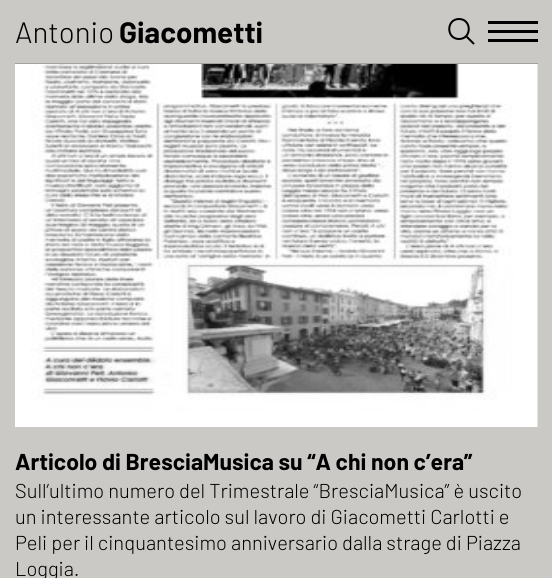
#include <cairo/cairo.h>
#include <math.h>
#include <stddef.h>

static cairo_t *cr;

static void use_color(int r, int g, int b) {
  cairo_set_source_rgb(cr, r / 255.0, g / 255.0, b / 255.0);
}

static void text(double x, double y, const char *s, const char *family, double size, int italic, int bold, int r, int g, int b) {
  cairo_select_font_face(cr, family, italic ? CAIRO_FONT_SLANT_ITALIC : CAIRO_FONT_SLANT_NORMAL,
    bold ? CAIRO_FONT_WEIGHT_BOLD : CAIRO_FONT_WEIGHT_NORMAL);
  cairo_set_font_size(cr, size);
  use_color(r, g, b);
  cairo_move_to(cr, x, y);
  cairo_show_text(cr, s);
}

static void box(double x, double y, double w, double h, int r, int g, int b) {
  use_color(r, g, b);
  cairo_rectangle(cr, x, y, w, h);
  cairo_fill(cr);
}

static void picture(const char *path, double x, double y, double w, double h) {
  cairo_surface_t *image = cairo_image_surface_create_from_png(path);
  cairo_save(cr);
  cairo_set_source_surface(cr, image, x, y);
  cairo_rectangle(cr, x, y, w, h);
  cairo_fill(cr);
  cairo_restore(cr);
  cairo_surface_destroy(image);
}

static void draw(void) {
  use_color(203, 201, 198);
  cairo_paint(cr);
  cairo_new_path(cr);
  cairo_move_to(cr, 459, 19);
  cairo_curve_to(cr, 446, 19, 446, 39, 459, 39);
  cairo_curve_to(cr, 472, 39, 472, 19, 459, 19);
  cairo_close_path(cr);
  use_color(0, 0, 0);
  cairo_stroke(cr);
  cairo_new_path(cr);
  cairo_move_to(cr, 466.5, 36.5);
  cairo_line_to(cr, 473.5, 43.5);
  cairo_set_line_cap(cr, CAIRO_LINE_CAP_ROUND);
  cairo_stroke(cr);
  box(488, 21, 50, 3, 0, 0, 0);
  box(488, 30, 50, 3, 0, 0, 0);
  box(488, 39, 50, 3, 0, 0, 0);
  box(15, 63, 523, 1, 162, 161, 158);
  box(537, 64, 1, 363, 219, 217, 215);
  picture("img_01.png", 15, 64, 523, 363);
  text(15, 43, "Antonio", "Barlow Light", 29.5, 0, 0, 0, 0, 0);
  text(119, 43, "Giacometti", "Barlow", 29.5, 0, 1, 0, 0, 0);
  text(15, 470, "Articolo di BresciaMusica su “A chi non c’era”", "Barlow", 23, 0, 1, 0, 0, 0);
  text(15, 498, "Sull’ultimo numero del Trimestrale “BresciaMusica” è uscito", "Barlow Light", 20.1, 0, 0, 0, 0, 0);
  text(15, 524, "un interessante articolo sul lavoro di Giacometti Carlotti e", "Barlow Light", 20.1, 0, 0, 0, 0, 0);
  text(15, 550, "Peli per il cinquantesimo anniversario dalla strage di Piazza", "Barlow Light", 20.1, 0, 0, 0, 0, 0);
  text(15, 576, "Loggia.", "Barlow Light", 20.1, 0, 0, 0, 0, 0);
}

int main(void) {
  cairo_surface_t *surface = cairo_image_surface_create(CAIRO_FORMAT_RGB24, 552, 578);
  cr = cairo_create(surface);
  cairo_font_options_t *options = cairo_font_options_create();
  cairo_font_options_set_hint_metrics(options, CAIRO_HINT_METRICS_OFF);
  cairo_font_options_set_hint_style(options, CAIRO_HINT_STYLE_NONE);
  cairo_set_font_options(cr, options);
  cairo_set_miter_limit(cr, 4);
  draw();
  cairo_surface_write_to_png(surface, "out.png");
  cairo_font_options_destroy(options);
  cairo_destroy(cr);
  cairo_surface_destroy(surface);
  return 0;
}
